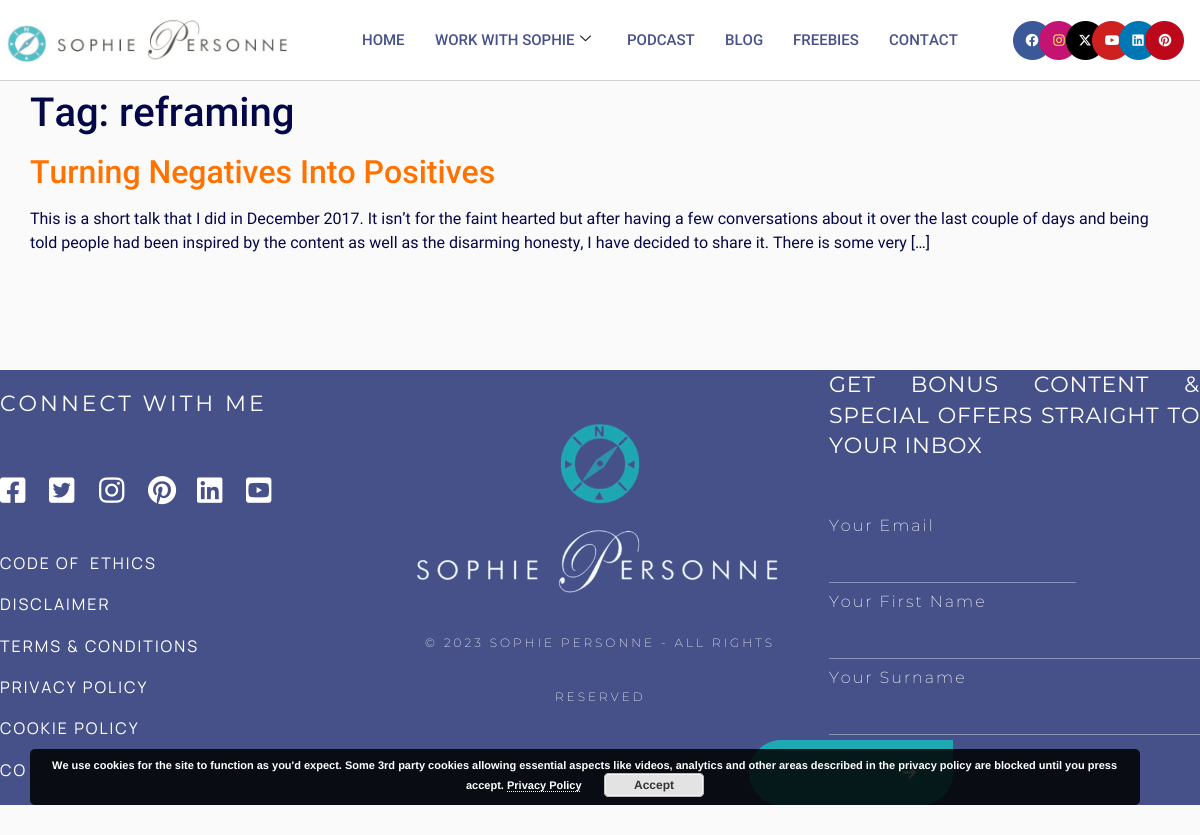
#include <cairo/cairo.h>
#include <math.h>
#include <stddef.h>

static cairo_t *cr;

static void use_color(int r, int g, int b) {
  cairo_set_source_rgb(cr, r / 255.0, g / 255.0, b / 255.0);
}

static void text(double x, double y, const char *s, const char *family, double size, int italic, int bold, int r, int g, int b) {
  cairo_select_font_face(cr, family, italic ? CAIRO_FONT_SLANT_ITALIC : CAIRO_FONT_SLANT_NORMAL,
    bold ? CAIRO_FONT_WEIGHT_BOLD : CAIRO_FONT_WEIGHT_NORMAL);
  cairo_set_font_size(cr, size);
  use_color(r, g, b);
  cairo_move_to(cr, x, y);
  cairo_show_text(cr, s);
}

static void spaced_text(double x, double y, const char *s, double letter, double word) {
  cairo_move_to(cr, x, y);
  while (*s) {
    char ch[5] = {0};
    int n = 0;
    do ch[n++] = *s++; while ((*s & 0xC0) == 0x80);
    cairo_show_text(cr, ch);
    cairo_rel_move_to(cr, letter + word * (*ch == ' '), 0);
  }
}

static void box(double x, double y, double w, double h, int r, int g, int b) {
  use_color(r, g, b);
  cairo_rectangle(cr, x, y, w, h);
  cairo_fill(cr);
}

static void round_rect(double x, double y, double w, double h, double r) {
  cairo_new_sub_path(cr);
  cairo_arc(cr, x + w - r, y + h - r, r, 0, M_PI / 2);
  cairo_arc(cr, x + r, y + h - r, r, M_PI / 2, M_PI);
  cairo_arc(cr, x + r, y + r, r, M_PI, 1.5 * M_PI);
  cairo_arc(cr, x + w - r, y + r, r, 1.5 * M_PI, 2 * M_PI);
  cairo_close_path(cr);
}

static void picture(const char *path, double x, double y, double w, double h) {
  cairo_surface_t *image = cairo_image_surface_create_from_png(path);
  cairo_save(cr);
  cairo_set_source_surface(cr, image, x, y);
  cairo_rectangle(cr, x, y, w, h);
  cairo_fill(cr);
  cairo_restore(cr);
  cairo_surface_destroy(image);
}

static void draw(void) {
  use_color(250, 250, 250);
  cairo_paint(cr);
  box(0, 0, 1200, 80, 255, 255, 255);
  box(0, 80, 1200, 1, 211, 211, 211);
  picture("img_01.png", 7, 19, 282, 44);
  picture("img_02.png", 580, 35, 11, 7);
  use_color(59, 89, 152);
  cairo_arc(cr, 1032.5, 40.5, 19.5, 0, 2 * M_PI);
  cairo_fill(cr);
  picture("img_03.png", 1025, 33, 14, 14);
  use_color(197, 19, 116);
  cairo_arc(cr, 1058.5, 40.5, 19.5, 0, 2 * M_PI);
  cairo_fill(cr);
  picture("img_04.png", 1053, 34, 12, 12);
  use_color(0, 0, 0);
  cairo_arc(cr, 1085.5, 40.5, 19.5, 0, 2 * M_PI);
  cairo_fill(cr);
  picture("img_05.png", 1079, 34, 12, 12);
  use_color(205, 32, 31);
  cairo_arc(cr, 1111.5, 40.5, 19.5, 0, 2 * M_PI);
  cairo_fill(cr);
  picture("img_06.png", 1105, 35, 14, 10);
  use_color(0, 119, 181);
  cairo_arc(cr, 1138.5, 40.5, 19.5, 0, 2 * M_PI);
  cairo_fill(cr);
  picture("img_07.png", 1132, 34, 12, 12);
  use_color(189, 8, 28);
  cairo_arc(cr, 1164.5, 40.5, 19.5, 0, 2 * M_PI);
  cairo_fill(cr);
  picture("img_08.png", 1158, 33, 14, 14);
  box(0, 370, 1200, 435, 70, 81, 137);
  picture("img_09.png", 0, 477, 26, 26);
  picture("img_10.png", 49, 477, 26, 26);
  picture("img_11.png", 99, 477, 26, 26);
  picture("img_12.png", 148, 476, 29, 29);
  picture("img_13.png", 197, 477, 26, 26);
  picture("img_14.png", 246, 477, 26, 26);
  picture("img_15.png", 560, 424, 80, 80);
  picture("img_16.png", 416, 530, 362, 63);
  box(829, 582, 247, 1, 138, 145, 181);
  box(829, 658, 371, 1, 138, 145, 181);
  box(829, 734, 371, 1, 138, 145, 181);
  use_color(31, 169, 179);
  cairo_new_path(cr);
  cairo_move_to(cr, 781.5, 740);
  cairo_line_to(cr, 953, 740);
  cairo_line_to(cr, 953, 772.5);
  cairo_curve_to(cr, 953, 790.5, 938.5, 805, 920.5, 805);
  cairo_line_to(cr, 781.5, 805);
  cairo_curve_to(cr, 763.5, 805, 749, 790.5, 749, 772.5);
  cairo_curve_to(cr, 749, 754.5, 763.5, 740, 781.5, 740);
  cairo_close_path(cr);
  cairo_fill(cr);
  picture("img_17.png", 903, 766, 14, 13);
  cairo_set_source_rgba(cr, 0, 0, 0, 0.85);
  round_rect(30, 749, 1110, 56, 5);
  cairo_fill(cr);
  cairo_new_path(cr);
  cairo_move_to(cr, 507, 791.5);
  cairo_line_to(cr, 581, 791.5);
  use_color(255, 255, 255);
  cairo_set_line_width(cr, 1);
  cairo_set_dash(cr, (double[]){1, 1}, 2, 0);
  cairo_stroke(cr);
  use_color(227, 227, 227);
  round_rect(604, 773, 100, 24, 5);
  cairo_fill(cr);
  round_rect(605.5, 774.5, 97, 21, 3.5);
  use_color(246, 246, 246);
  cairo_set_dash(cr, NULL, 0, 0);
  cairo_stroke(cr);
  round_rect(604.5, 773.5, 99, 23, 4.5);
  use_color(187, 187, 187);
  cairo_stroke(cr);
  text(362, 45, "HOME", "Roboto Medium", 15, 0, 0, 70, 81, 137);
  text(435, 45, "WORK WITH SOPHIE", "Roboto Medium", 15, 0, 0, 70, 81, 137);
  text(627, 45, "PODCAST", "Roboto Medium", 15, 0, 0, 70, 81, 137);
  text(725, 45, "BLOG", "Roboto Medium", 15, 0, 0, 70, 81, 137);
  text(793, 45, "FREEBIES", "Roboto Medium", 15, 0, 0, 70, 81, 137);
  text(889, 45, "CONTACT", "Roboto Medium", 15, 0, 0, 70, 81, 137);
  text(30, 126, "Tag: reframing", "Roboto Medium", 40, 0, 0, 4, 7, 71);
  text(30, 183, "Turning Negatives Into Positives", "Roboto Medium", 32, 0, 0, 255, 114, 0);
  text(30, 224, "This is a short talk that I did in December 2017. It isn’t for the faint hearted but after having a few conversations about it over the last couple of days and being", "Roboto", 16, 0, 0, 4, 7, 71);
  text(30, 248, "told people had been inspired by the content as well as the disarming honesty, I have decided to share it. There is some very […]", "Roboto", 16, 0, 0, 4, 7, 71);
  cairo_select_font_face(cr, "Montserrat", CAIRO_FONT_SLANT_NORMAL, CAIRO_FONT_WEIGHT_NORMAL);
  cairo_set_font_size(cr, 22);
  use_color(255, 255, 255);
  spaced_text(0, 411, "CONNECT WITH ME", 3, 0);
  cairo_select_font_face(cr, "Manrope", CAIRO_FONT_SLANT_NORMAL, CAIRO_FONT_WEIGHT_NORMAL);
  cairo_set_font_size(cr, 16);
  spaced_text(0, 569, "CODE OF  ETHICS", 2, 0);
  spaced_text(0, 610, "DISCLAIMER", 2, 0);
  spaced_text(0, 652, "TERMS & CONDITIONS", 2, 0);
  spaced_text(0, 693, "PRIVACY POLICY", 2, 0);
  spaced_text(0, 734, "COOKIE POLICY", 2, 0);
  spaced_text(0, 776, "CO", 2, 0);
  cairo_select_font_face(cr, "Montserrat ExtraLight", CAIRO_FONT_SLANT_NORMAL, CAIRO_FONT_WEIGHT_NORMAL);
  cairo_set_font_size(cr, 12);
  spaced_text(425, 647, "© 2023 SOPHIE PERSONNE - ALL RIGHTS", 3, 0);
  spaced_text(555, 701, "RESERVED", 3, 0);
  cairo_select_font_face(cr, "Montserrat", CAIRO_FONT_SLANT_NORMAL, CAIRO_FONT_WEIGHT_NORMAL);
  cairo_set_font_size(cr, 22);
  spaced_text(829, 392, "GET BONUS CONTENT &", 0.8, 28.5);
  spaced_text(829, 423, "SPECIAL OFFERS STRAIGHT TO", 0.8, 1.5);
  spaced_text(829, 453, "YOUR INBOX", 0.8, 0);
  cairo_select_font_face(cr, "Montserrat ExtraLight", CAIRO_FONT_SLANT_NORMAL, CAIRO_FONT_WEIGHT_NORMAL);
  cairo_set_font_size(cr, 16);
  spaced_text(829, 531, "Your Email", 2, 0);
  spaced_text(829, 607, "Your First Name", 2, 0);
  spaced_text(829, 683, "Your Surname", 2, 0);
  text(52, 769, "We use cookies for the site to function as you'd expect. Some 3rd party cookies allowing essential aspects like videos, analytics and other areas described in the privacy policy are blocked until you press", "Liberation Sans", 11, 0, 1, 255, 255, 255);
  text(466, 789, "accept.", "Liberation Sans", 11, 0, 1, 255, 255, 255);
  text(507, 789, "Privacy Policy", "Liberation Sans", 11, 0, 1, 255, 255, 255);
  text(634, 789, "Accept", "Liberation Sans", 12, 0, 1, 51, 51, 51);
}

int main(void) {
  cairo_surface_t *surface = cairo_image_surface_create(CAIRO_FORMAT_RGB24, 1200, 835);
  cr = cairo_create(surface);
  cairo_font_options_t *options = cairo_font_options_create();
  cairo_font_options_set_hint_metrics(options, CAIRO_HINT_METRICS_OFF);
  cairo_font_options_set_hint_style(options, CAIRO_HINT_STYLE_NONE);
  cairo_set_font_options(cr, options);
  cairo_set_miter_limit(cr, 4);
  draw();
  cairo_surface_write_to_png(surface, "out.png");
  cairo_font_options_destroy(options);
  cairo_destroy(cr);
  cairo_surface_destroy(surface);
  return 0;
}
